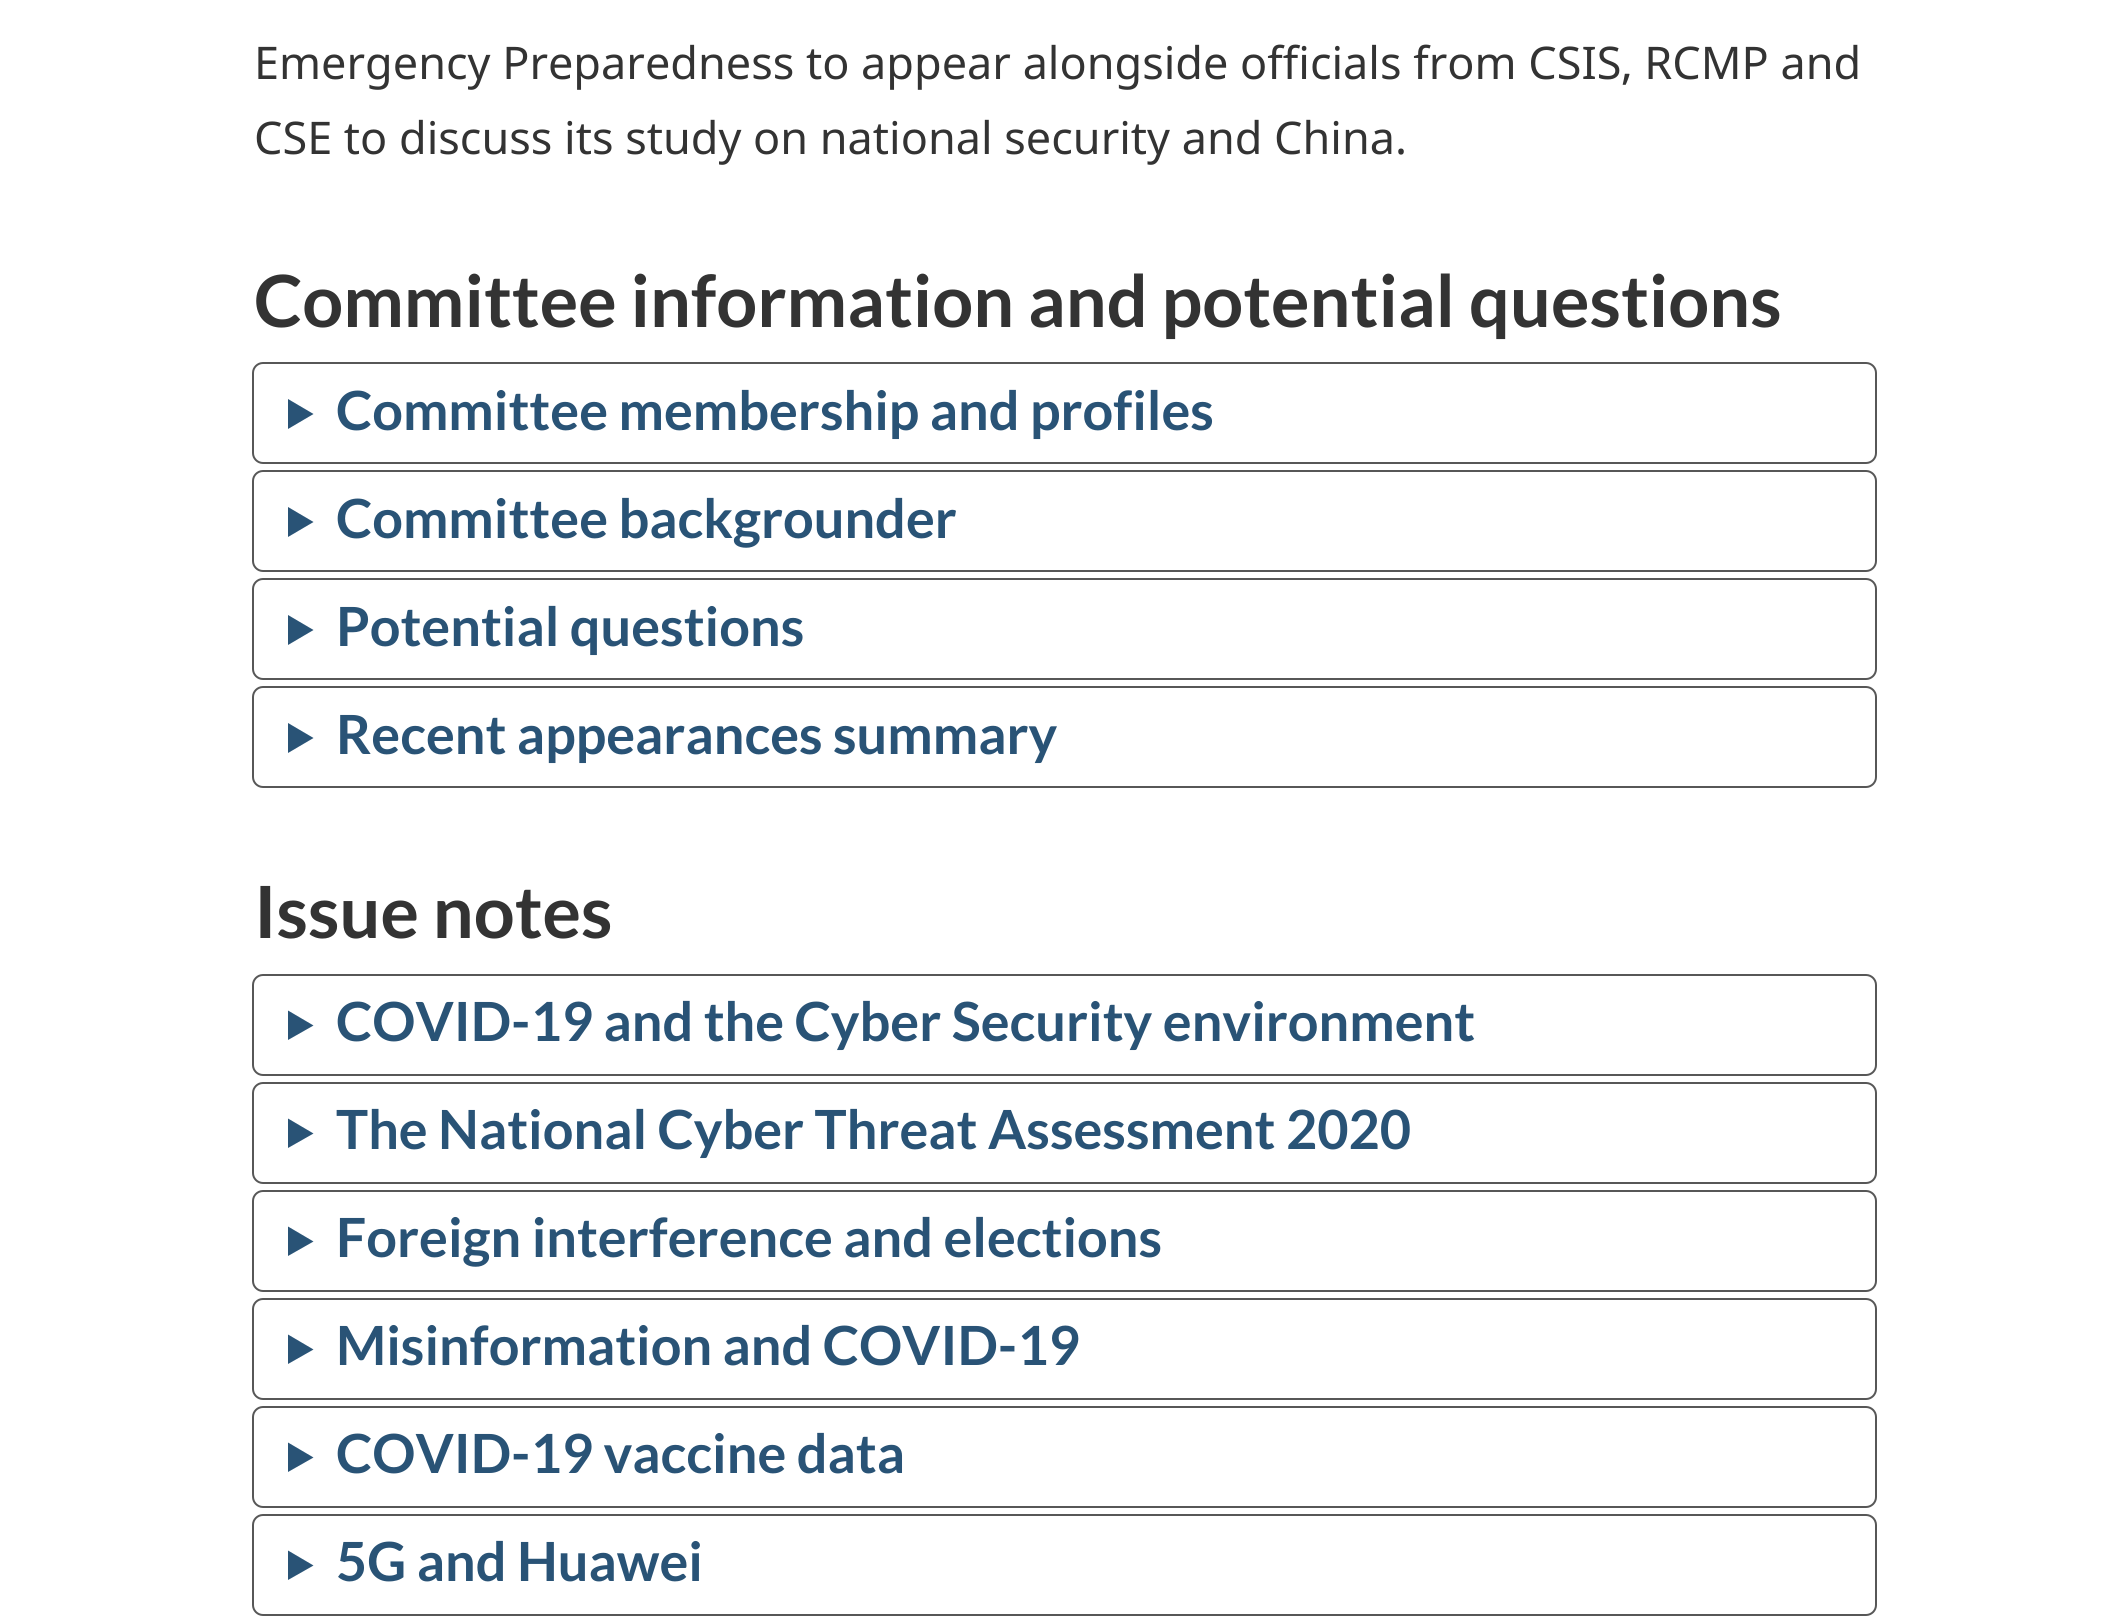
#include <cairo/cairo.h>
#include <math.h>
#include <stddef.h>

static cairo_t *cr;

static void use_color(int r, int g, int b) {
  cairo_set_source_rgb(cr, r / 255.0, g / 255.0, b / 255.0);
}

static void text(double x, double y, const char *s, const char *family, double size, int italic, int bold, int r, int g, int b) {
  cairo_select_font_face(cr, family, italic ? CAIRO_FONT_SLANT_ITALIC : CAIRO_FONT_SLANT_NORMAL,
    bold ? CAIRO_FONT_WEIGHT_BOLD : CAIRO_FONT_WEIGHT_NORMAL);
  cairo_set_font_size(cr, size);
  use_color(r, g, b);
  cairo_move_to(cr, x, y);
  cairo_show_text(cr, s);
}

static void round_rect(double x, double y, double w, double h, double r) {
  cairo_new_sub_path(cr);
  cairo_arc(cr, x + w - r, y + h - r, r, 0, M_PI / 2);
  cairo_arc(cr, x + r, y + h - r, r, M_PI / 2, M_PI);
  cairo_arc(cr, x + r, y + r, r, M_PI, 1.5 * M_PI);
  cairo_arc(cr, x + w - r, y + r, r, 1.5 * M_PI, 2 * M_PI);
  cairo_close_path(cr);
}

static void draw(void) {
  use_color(255, 255, 255);
  cairo_paint(cr);
  use_color(41, 83, 118);
  cairo_new_path(cr);
  cairo_move_to(cr, 288, 399);
  cairo_line_to(cr, 313.5, 414);
  cairo_line_to(cr, 288, 429);
  cairo_close_path(cr);
  cairo_fill(cr);
  round_rect(253, 363, 1623, 100, 10);
  use_color(87, 87, 87);
  cairo_stroke(cr);
  use_color(41, 83, 118);
  cairo_new_path(cr);
  cairo_move_to(cr, 288, 507);
  cairo_line_to(cr, 313.5, 522);
  cairo_line_to(cr, 288, 537);
  cairo_close_path(cr);
  cairo_fill(cr);
  round_rect(253, 471, 1623, 100, 10);
  use_color(87, 87, 87);
  cairo_stroke(cr);
  use_color(41, 83, 118);
  cairo_new_path(cr);
  cairo_move_to(cr, 288, 615);
  cairo_line_to(cr, 313.5, 630);
  cairo_line_to(cr, 288, 645);
  cairo_close_path(cr);
  cairo_fill(cr);
  round_rect(253, 579, 1623, 100, 10);
  use_color(87, 87, 87);
  cairo_stroke(cr);
  use_color(41, 83, 118);
  cairo_new_path(cr);
  cairo_move_to(cr, 288, 723);
  cairo_line_to(cr, 313.5, 738);
  cairo_line_to(cr, 288, 753);
  cairo_close_path(cr);
  cairo_fill(cr);
  round_rect(253, 687, 1623, 100, 10);
  use_color(87, 87, 87);
  cairo_stroke(cr);
  use_color(41, 83, 118);
  cairo_new_path(cr);
  cairo_move_to(cr, 288, 1010.5);
  cairo_line_to(cr, 313.5, 1025.5);
  cairo_line_to(cr, 288, 1040);
  cairo_close_path(cr);
  cairo_fill(cr);
  round_rect(253, 975, 1623, 100, 10);
  use_color(87, 87, 87);
  cairo_stroke(cr);
  use_color(41, 83, 118);
  cairo_new_path(cr);
  cairo_move_to(cr, 288, 1118.5);
  cairo_line_to(cr, 313.5, 1133.5);
  cairo_line_to(cr, 288, 1148);
  cairo_close_path(cr);
  cairo_fill(cr);
  round_rect(253, 1083, 1623, 100, 10);
  use_color(87, 87, 87);
  cairo_stroke(cr);
  use_color(41, 83, 118);
  cairo_new_path(cr);
  cairo_move_to(cr, 288, 1226.5);
  cairo_line_to(cr, 313.5, 1241.5);
  cairo_line_to(cr, 288, 1256);
  cairo_close_path(cr);
  cairo_fill(cr);
  round_rect(253, 1191, 1623, 100, 10);
  use_color(87, 87, 87);
  cairo_stroke(cr);
  use_color(41, 83, 118);
  cairo_new_path(cr);
  cairo_move_to(cr, 288, 1334.5);
  cairo_line_to(cr, 313.5, 1349.5);
  cairo_line_to(cr, 288, 1364);
  cairo_close_path(cr);
  cairo_fill(cr);
  round_rect(253, 1299, 1623, 100, 10);
  use_color(87, 87, 87);
  cairo_stroke(cr);
  use_color(41, 83, 118);
  cairo_new_path(cr);
  cairo_move_to(cr, 288, 1442.5);
  cairo_line_to(cr, 313.5, 1457.5);
  cairo_line_to(cr, 288, 1472);
  cairo_close_path(cr);
  cairo_fill(cr);
  round_rect(253, 1407, 1623, 100, 10);
  use_color(87, 87, 87);
  cairo_stroke(cr);
  use_color(41, 83, 118);
  cairo_new_path(cr);
  cairo_move_to(cr, 288, 1550.5);
  cairo_line_to(cr, 313.5, 1565.5);
  cairo_line_to(cr, 288, 1580);
  cairo_close_path(cr);
  cairo_fill(cr);
  round_rect(253, 1515, 1623, 100, 10);
  use_color(87, 87, 87);
  cairo_stroke(cr);
  text(254, 79, "Emergency Preparedness to appear alongside officials from CSIS, RCMP and", "Noto Sans", 45, 0, 0, 51, 51, 51);
  text(254, 154, "CSE to discuss its study on national security and China.", "Noto Sans", 45, 0, 0, 51, 51, 51);
  text(254, 327, "Committee information and potential questions", "Lato", 72, 0, 1, 51, 51, 51);
  text(336, 430, "Committee membership and profiles", "Lato", 54, 0, 1, 41, 83, 118);
  text(336, 538, "Committee backgrounder", "Lato", 54, 0, 1, 41, 83, 118);
  text(336, 646, "Potential questions", "Lato", 54, 0, 1, 41, 83, 118);
  text(336, 754, "Recent appearances summary", "Lato", 54, 0, 1, 41, 83, 118);
  text(254, 938, "Issue notes", "Lato", 72, 0, 1, 51, 51, 51);
  text(336, 1041, "COVID-19 and the Cyber Security environment", "Lato", 54, 0, 1, 41, 83, 118);
  text(336, 1149, "The National Cyber Threat Assessment 2020", "Lato", 54, 0, 1, 41, 83, 118);
  text(336, 1257, "Foreign interference and elections", "Lato", 54, 0, 1, 41, 83, 118);
  text(336, 1365, "Misinformation and COVID-19", "Lato", 54, 0, 1, 41, 83, 118);
  text(336, 1473, "COVID-19 vaccine data", "Lato", 54, 0, 1, 41, 83, 118);
  text(336, 1581, "5G and Huawei", "Lato", 54, 0, 1, 41, 83, 118);
}

int main(void) {
  cairo_surface_t *surface = cairo_image_surface_create(CAIRO_FORMAT_RGB24, 2127, 1616);
  cr = cairo_create(surface);
  cairo_font_options_t *options = cairo_font_options_create();
  cairo_font_options_set_hint_metrics(options, CAIRO_HINT_METRICS_OFF);
  cairo_font_options_set_hint_style(options, CAIRO_HINT_STYLE_NONE);
  cairo_set_font_options(cr, options);
  cairo_set_miter_limit(cr, 4);
  draw();
  cairo_surface_write_to_png(surface, "out.png");
  cairo_font_options_destroy(options);
  cairo_destroy(cr);
  cairo_surface_destroy(surface);
  return 0;
}
